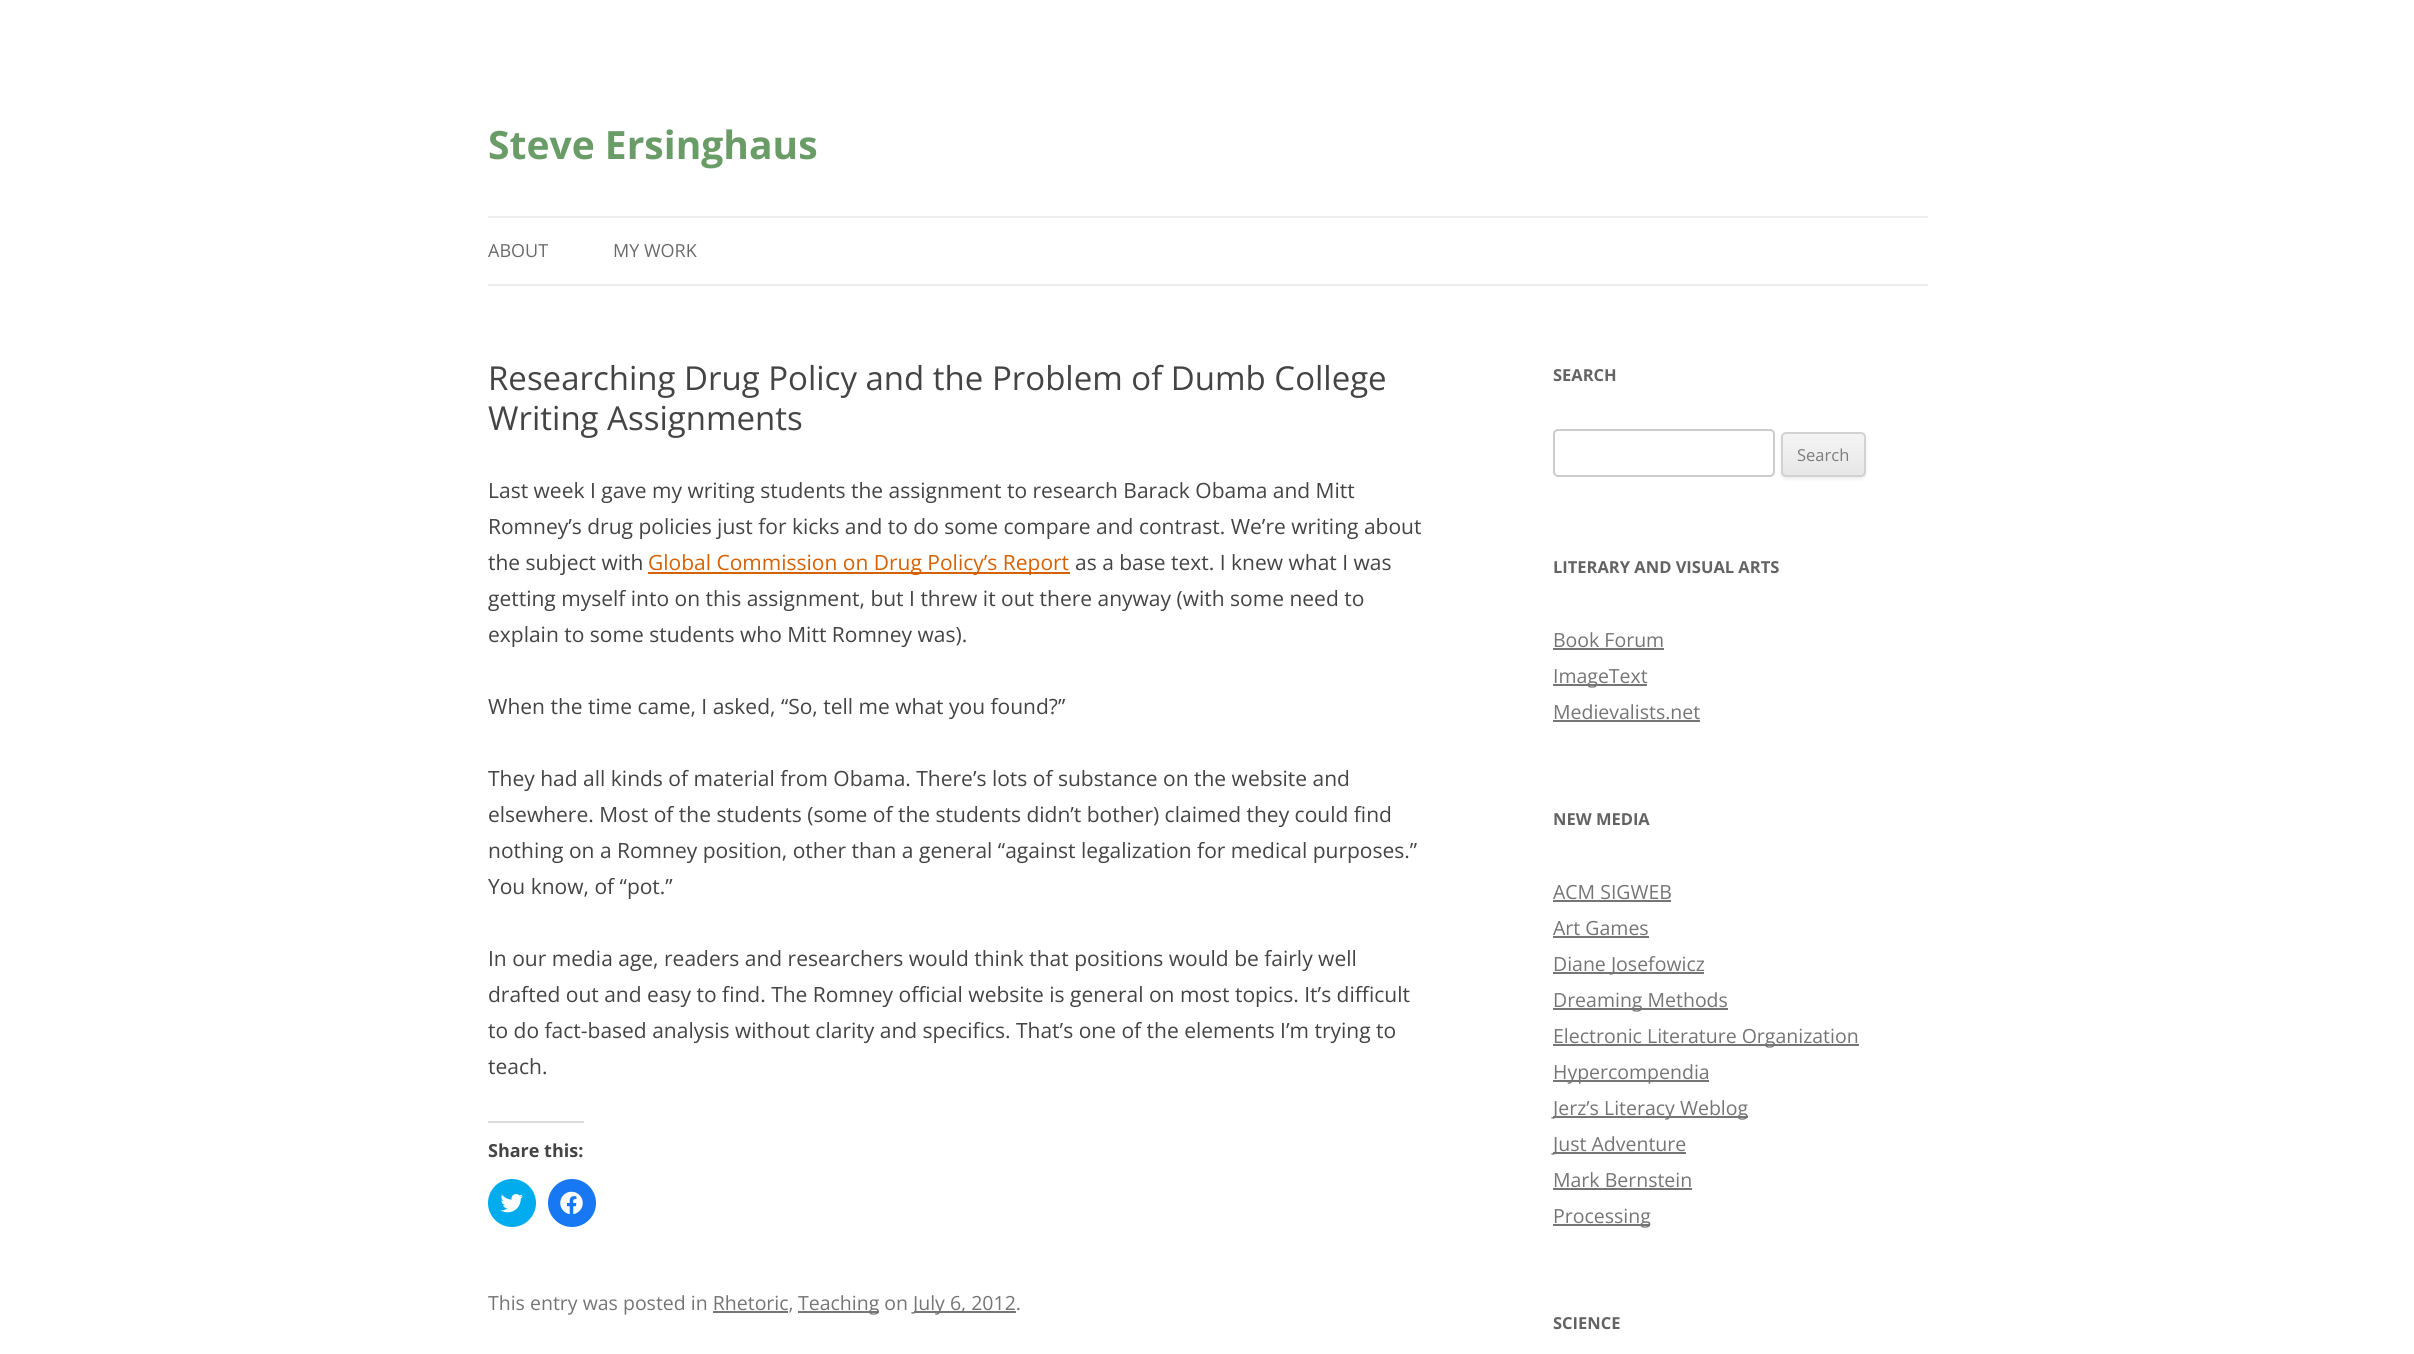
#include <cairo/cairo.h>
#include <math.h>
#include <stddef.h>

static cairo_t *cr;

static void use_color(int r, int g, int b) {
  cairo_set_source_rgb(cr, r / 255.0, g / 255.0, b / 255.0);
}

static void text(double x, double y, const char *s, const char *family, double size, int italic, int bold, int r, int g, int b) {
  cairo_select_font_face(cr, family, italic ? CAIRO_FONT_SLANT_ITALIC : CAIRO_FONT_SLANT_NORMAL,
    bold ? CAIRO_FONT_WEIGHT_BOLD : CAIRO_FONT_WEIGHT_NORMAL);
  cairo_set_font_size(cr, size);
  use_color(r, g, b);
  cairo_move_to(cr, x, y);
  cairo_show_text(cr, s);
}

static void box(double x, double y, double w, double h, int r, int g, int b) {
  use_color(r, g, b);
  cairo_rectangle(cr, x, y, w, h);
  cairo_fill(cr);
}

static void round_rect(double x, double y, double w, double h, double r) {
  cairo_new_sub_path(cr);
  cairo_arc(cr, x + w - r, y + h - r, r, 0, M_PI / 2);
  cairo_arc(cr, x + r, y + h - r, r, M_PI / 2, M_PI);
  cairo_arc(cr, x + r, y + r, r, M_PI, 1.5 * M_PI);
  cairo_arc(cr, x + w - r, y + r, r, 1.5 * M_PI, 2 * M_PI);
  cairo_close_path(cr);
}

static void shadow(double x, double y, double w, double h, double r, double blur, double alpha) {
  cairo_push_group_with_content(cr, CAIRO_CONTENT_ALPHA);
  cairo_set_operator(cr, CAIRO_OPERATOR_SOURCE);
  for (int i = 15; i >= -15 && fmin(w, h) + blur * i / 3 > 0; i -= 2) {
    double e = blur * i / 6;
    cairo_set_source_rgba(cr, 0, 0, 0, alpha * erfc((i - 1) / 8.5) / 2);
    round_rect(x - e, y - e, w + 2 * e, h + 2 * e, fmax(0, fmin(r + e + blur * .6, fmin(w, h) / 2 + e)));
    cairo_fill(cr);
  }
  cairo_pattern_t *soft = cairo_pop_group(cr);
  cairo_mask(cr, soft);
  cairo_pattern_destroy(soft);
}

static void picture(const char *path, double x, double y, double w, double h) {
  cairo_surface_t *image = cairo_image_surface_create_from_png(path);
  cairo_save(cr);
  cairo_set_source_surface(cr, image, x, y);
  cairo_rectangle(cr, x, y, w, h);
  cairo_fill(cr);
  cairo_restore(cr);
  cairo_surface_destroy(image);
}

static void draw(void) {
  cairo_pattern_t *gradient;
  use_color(255, 255, 255);
  cairo_paint(cr);
  box(488, 216, 1440, 2, 237, 237, 237);
  box(488, 284, 1440, 2, 237, 237, 237);
  box(648, 572, 422, 2, 214, 97, 2);
  box(488, 1121, 96, 2, 220, 220, 222);
  use_color(0, 172, 238);
  cairo_arc(cr, 512, 1203, 24, 0, 2 * M_PI);
  cairo_fill(cr);
  picture("img_01.png", 500, 1194, 23, 19);
  use_color(24, 119, 242);
  cairo_arc(cr, 572, 1203, 24, 0, 2 * M_PI);
  cairo_fill(cr);
  picture("img_02.png", 560, 1191, 23, 24);
  box(798, 1311, 81, 2, 117, 117, 117);
  box(914, 1311, 102, 2, 117, 117, 117);
  box(713, 1311, 75, 2, 117, 117, 117);
  round_rect(1554, 430, 220, 46, 4);
  use_color(204, 204, 204);
  cairo_stroke(cr);
  use_color(64, 64, 64);
  shadow(1781, 434, 85, 45, 5, 1.5, 0.1);
  cairo_save(cr);
  round_rect(1781, 432, 85, 45, 5);
  cairo_clip(cr);
  gradient = cairo_pattern_create_linear(1823, 434, 1823, 476);
  cairo_pattern_add_color_stop_rgba(gradient, 0, 0.957, 0.957, 0.957, 1);
  cairo_pattern_add_color_stop_rgba(gradient, 1, 0.902, 0.902, 0.902, 1);
  cairo_set_source(cr, gradient);
  cairo_pattern_destroy(gradient);
  cairo_rectangle(cr, 1781, 434, 85, 42);
  cairo_fill(cr);
  cairo_restore(cr);
  round_rect(1782, 433, 83, 43, 4);
  use_color(210, 210, 210);
  cairo_stroke(cr);
  box(1553, 648, 111, 2, 117, 117, 117);
  box(1553, 684, 94, 2, 117, 117, 117);
  box(1553, 720, 147, 2, 117, 117, 117);
  box(1553, 900, 118, 2, 117, 117, 117);
  box(1553, 936, 96, 2, 117, 117, 117);
  box(1553, 972, 151, 2, 117, 117, 117);
  box(1553, 1008, 175, 2, 117, 117, 117);
  box(1553, 1044, 306, 2, 117, 117, 117);
  box(1553, 1080, 156, 2, 117, 117, 117);
  box(1553, 1116, 195, 2, 117, 117, 117);
  box(1553, 1152, 133, 2, 117, 117, 117);
  box(1553, 1188, 139, 2, 117, 117, 117);
  box(1553, 1224, 97, 2, 117, 117, 117);
  text(488, 159, "Steve Ersinghaus", "Open Sans", 39, 0, 1, 106, 156, 104);
  text(488, 257, "ABOUT", "Open Sans", 18, 0, 0, 106, 106, 106);
  text(613, 257, "MY WORK", "Open Sans", 18, 0, 0, 106, 106, 106);
  text(488, 390, "Researching Drug Policy and the Problem of Dumb College", "Open Sans", 33, 0, 0, 68, 68, 68);
  text(488, 430, "Writing Assignments", "Open Sans", 33, 0, 0, 68, 68, 68);
  text(488, 498, "Last week I gave my writing students the assignment to research Barack Obama and Mitt", "Open Sans", 21, 0, 0, 68, 68, 68);
  text(488, 534, "Romney’s drug policies just for kicks and to do some compare and contrast. We’re writing about", "Open Sans", 21, 0, 0, 68, 68, 68);
  text(488, 570, "the subject with", "Open Sans", 21, 0, 0, 68, 68, 68);
  text(648, 570, "Global Commission on Drug Policy’s Report", "Open Sans", 21, 0, 0, 214, 97, 2);
  text(1075, 570, "as a base text. I knew what I was", "Open Sans", 21, 0, 0, 68, 68, 68);
  text(488, 606, "getting myself into on this assignment, but I threw it out there anyway (with some need to", "Open Sans", 21, 0, 0, 68, 68, 68);
  text(488, 642, "explain to some students who Mitt Romney was).", "Open Sans", 21, 0, 0, 68, 68, 68);
  text(488, 714, "When the time came, I asked, “So, tell me what you found?”", "Open Sans", 21, 0, 0, 68, 68, 68);
  text(488, 786, "They had all kinds of material from Obama. There’s lots of substance on the website and", "Open Sans", 21, 0, 0, 68, 68, 68);
  text(488, 822, "elsewhere. Most of the students (some of the students didn’t bother) claimed they could find", "Open Sans", 21, 0, 0, 68, 68, 68);
  text(488, 858, "nothing on a Romney position, other than a general “against legalization for medical purposes.”", "Open Sans", 21, 0, 0, 68, 68, 68);
  text(488, 894, "You know, of “pot.”", "Open Sans", 21, 0, 0, 68, 68, 68);
  text(488, 966, "In our media age, readers and researchers would think that positions would be fairly well", "Open Sans", 21, 0, 0, 68, 68, 68);
  text(488, 1002, "drafted out and easy to find. The Romney official website is general on most topics. It’s difficult", "Open Sans", 21, 0, 0, 68, 68, 68);
  text(488, 1038, "to do fact-based analysis without clarity and specifics. That’s one of the elements I’m trying to", "Open Sans", 21, 0, 0, 68, 68, 68);
  text(488, 1074, "teach.", "Open Sans", 21, 0, 0, 68, 68, 68);
  text(488, 1157, "Share this:", "Open Sans", 18, 0, 1, 68, 68, 68);
  text(488, 1310, "This entry was posted in Rhetoric,", "Open Sans", 19.5, 0, 0, 117, 117, 117);
  text(798, 1310, "Teaching on", "Open Sans", 19.5, 0, 0, 117, 117, 117);
  text(913, 1310, "July 6, 2012.", "Open Sans", 19.5, 0, 0, 117, 117, 117);
  text(1553, 381, "SEARCH", "Open Sans", 16.5, 0, 1, 99, 99, 99);
  text(1797, 461, "Search", "Open Sans", 16.5, 0, 0, 124, 124, 124);
  text(1553, 573, "LITERARY AND VISUAL ARTS", "Open Sans", 16.5, 0, 1, 99, 99, 99);
  text(1553, 647, "Book Forum", "Open Sans", 19.5, 0, 0, 117, 117, 117);
  text(1553, 683, "ImageText", "Open Sans", 19.5, 0, 0, 117, 117, 117);
  text(1553, 719, "Medievalists.net", "Open Sans", 19.5, 0, 0, 117, 117, 117);
  text(1553, 825, "NEW MEDIA", "Open Sans", 16.5, 0, 1, 99, 99, 99);
  text(1553, 899, "ACM SIGWEB", "Open Sans", 19.5, 0, 0, 117, 117, 117);
  text(1553, 935, "Art Games", "Open Sans", 19.5, 0, 0, 117, 117, 117);
  text(1553, 971, "Diane Josefowicz", "Open Sans", 19.5, 0, 0, 117, 117, 117);
  text(1553, 1007, "Dreaming Methods", "Open Sans", 19.5, 0, 0, 117, 117, 117);
  text(1553, 1043, "Electronic Literature Organization", "Open Sans", 19.5, 0, 0, 117, 117, 117);
  text(1553, 1079, "Hypercompendia", "Open Sans", 19.5, 0, 0, 117, 117, 117);
  text(1553, 1115, "Jerz’s Literacy Weblog", "Open Sans", 19.5, 0, 0, 117, 117, 117);
  text(1553, 1151, "Just Adventure", "Open Sans", 19.5, 0, 0, 117, 117, 117);
  text(1553, 1187, "Mark Bernstein", "Open Sans", 19.5, 0, 0, 117, 117, 117);
  text(1553, 1223, "Processing", "Open Sans", 19.5, 0, 0, 117, 117, 117);
  text(1553, 1329, "SCIENCE", "Open Sans", 16.5, 0, 1, 99, 99, 99);
}

int main(void) {
  cairo_surface_t *surface = cairo_image_surface_create(CAIRO_FORMAT_RGB24, 2414, 1354);
  cr = cairo_create(surface);
  cairo_font_options_t *options = cairo_font_options_create();
  cairo_font_options_set_hint_metrics(options, CAIRO_HINT_METRICS_OFF);
  cairo_font_options_set_hint_style(options, CAIRO_HINT_STYLE_NONE);
  cairo_set_font_options(cr, options);
  cairo_set_miter_limit(cr, 4);
  draw();
  cairo_surface_write_to_png(surface, "out.png");
  cairo_font_options_destroy(options);
  cairo_destroy(cr);
  cairo_surface_destroy(surface);
  return 0;
}
